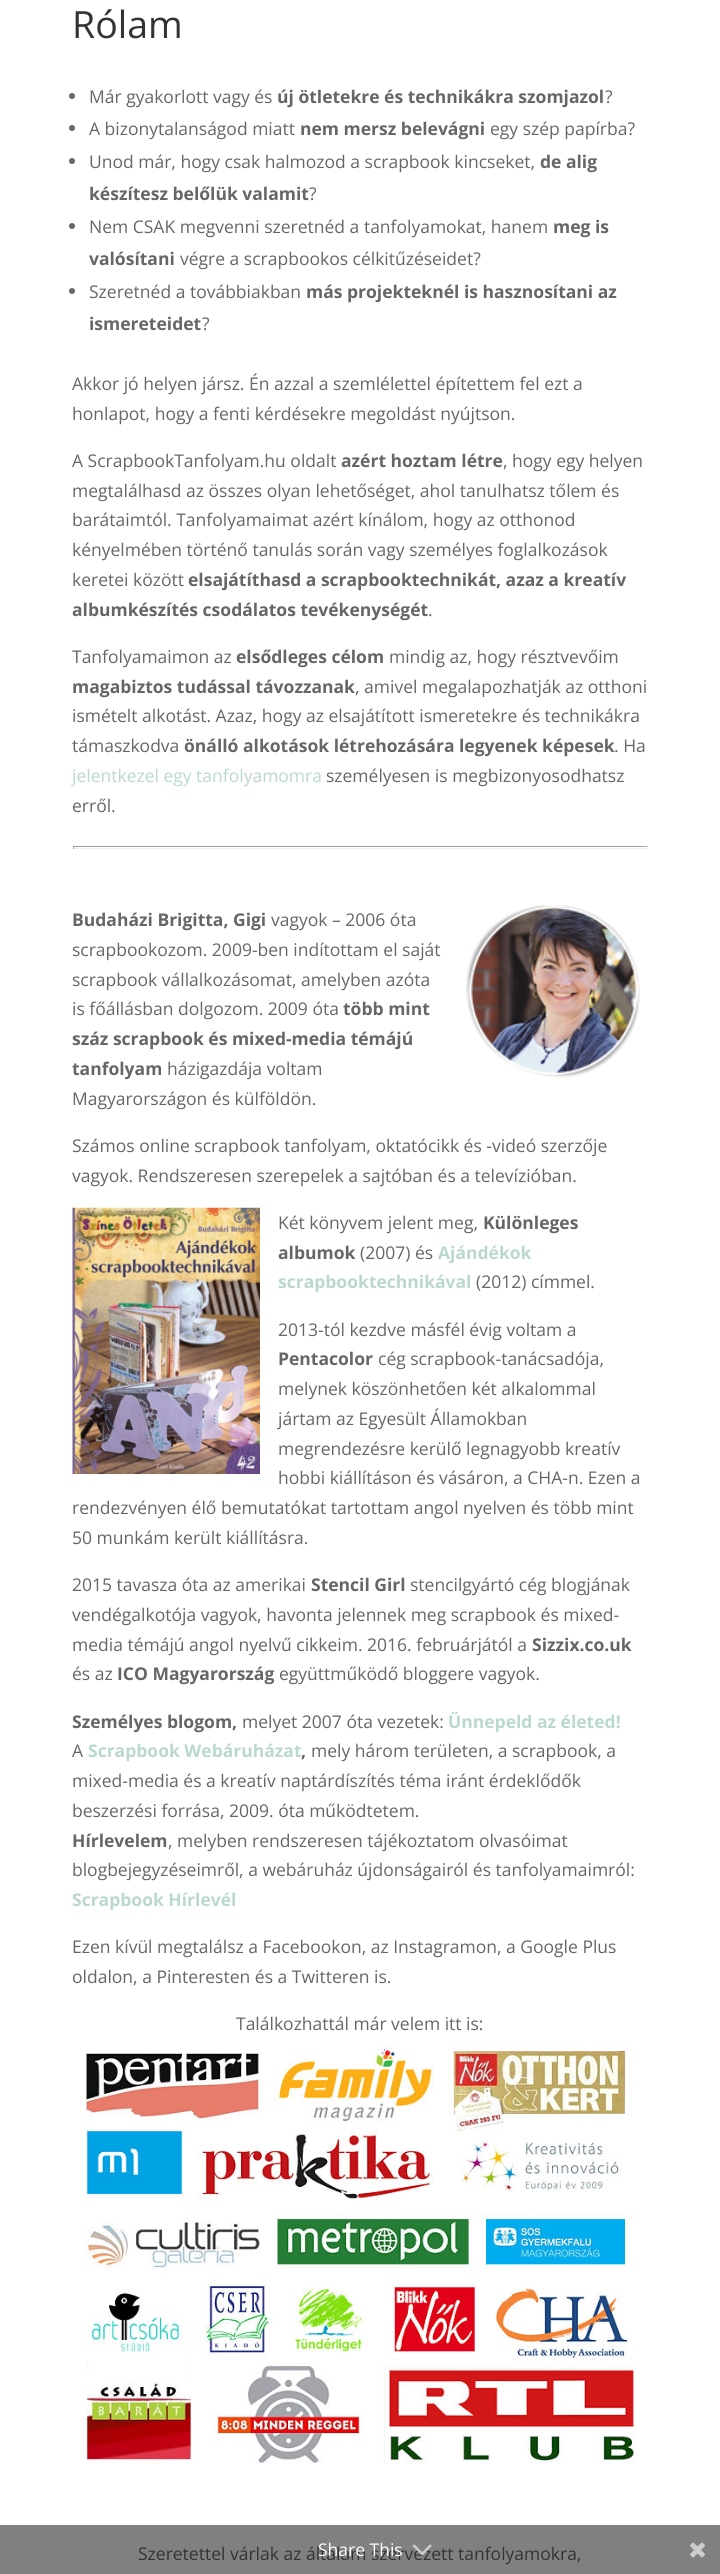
#include <cairo/cairo.h>
#include <math.h>
#include <stddef.h>

static cairo_t *cr;

static void use_color(int r, int g, int b) {
  cairo_set_source_rgb(cr, r / 255.0, g / 255.0, b / 255.0);
}

static void text(double x, double y, const char *s, const char *family, double size, int italic, int bold, int r, int g, int b) {
  cairo_select_font_face(cr, family, italic ? CAIRO_FONT_SLANT_ITALIC : CAIRO_FONT_SLANT_NORMAL,
    bold ? CAIRO_FONT_WEIGHT_BOLD : CAIRO_FONT_WEIGHT_NORMAL);
  cairo_set_font_size(cr, size);
  use_color(r, g, b);
  cairo_move_to(cr, x, y);
  cairo_show_text(cr, s);
}

static void box(double x, double y, double w, double h, int r, int g, int b) {
  use_color(r, g, b);
  cairo_rectangle(cr, x, y, w, h);
  cairo_fill(cr);
}

static void picture(const char *path, double x, double y, double w, double h) {
  cairo_surface_t *image = cairo_image_surface_create_from_png(path);
  cairo_save(cr);
  cairo_set_source_surface(cr, image, x, y);
  cairo_rectangle(cr, x, y, w, h);
  cairo_fill(cr);
  cairo_restore(cr);
  cairo_surface_destroy(image);
}

static void draw(void) {
  use_color(255, 255, 255);
  cairo_paint(cr);
  box(0, 2525, 720, 49, 128, 128, 128);
  use_color(102, 102, 102);
  cairo_arc(cr, 72, 96, 3, 0, 2 * M_PI);
  cairo_fill(cr);
  cairo_arc(cr, 72, 128, 3, 0, 2 * M_PI);
  cairo_fill(cr);
  cairo_arc(cr, 72, 161, 3, 0, 2 * M_PI);
  cairo_fill(cr);
  cairo_arc(cr, 72, 226, 3, 0, 2 * M_PI);
  cairo_fill(cr);
  cairo_arc(cr, 72, 291, 3, 0, 2 * M_PI);
  cairo_fill(cr);
  box(73, 846, 575, 1, 159, 159, 159);
  box(646, 846, 1, 3, 238, 238, 238);
  box(73, 848, 575, 1, 238, 238, 238);
  box(73, 846, 1, 3, 159, 159, 159);
  picture("img_01.png", 466, 905, 174, 173);
  picture("img_02.png", 72, 1207, 188, 267);
  picture("img_03.png", 85, 2046, 553, 418);
  picture("img_05.png", 690, 2542, 15, 16);
  text(72, 38, "Rólam", "Open Sans", 37.5, 0, 0, 51, 51, 51);
  text(89, 103, "Már gyakorlott vagy és", "Open Sans", 17.5, 0, 0, 102, 102, 102);
  text(277, 103, "új ötletekre és technikákra szomjazol", "Open Sans", 17.5, 0, 1, 102, 102, 102);
  text(605, 103, "?", "Open Sans", 17.5, 0, 0, 102, 102, 102);
  text(89, 135, "A bizonytalanságod miatt", "Open Sans", 17.5, 0, 0, 102, 102, 102);
  text(300, 135, "nem mersz belevágni", "Open Sans", 17.5, 0, 1, 102, 102, 102);
  text(490, 135, "egy szép papírba?", "Open Sans", 17.5, 0, 0, 102, 102, 102);
  text(89, 168, "Unod már, hogy csak halmozod a scrapbook kincseket,", "Open Sans", 17.5, 0, 0, 102, 102, 102);
  text(540, 168, "de alig", "Open Sans", 17.5, 0, 1, 102, 102, 102);
  text(89, 200, "készítesz belőlük valamit", "Open Sans", 17.5, 0, 1, 102, 102, 102);
  text(309, 200, "?", "Open Sans", 17.5, 0, 0, 102, 102, 102);
  text(89, 233, "Nem CSAK megvenni szeretnéd a tanfolyamokat, hanem", "Open Sans", 17.5, 0, 0, 102, 102, 102);
  text(553, 233, "meg is", "Open Sans", 17.5, 0, 1, 102, 102, 102);
  text(89, 265, "valósítani", "Open Sans", 17.5, 0, 1, 102, 102, 102);
  text(180, 265, "végre a scrapbookos célkitűzéseidet?", "Open Sans", 17.5, 0, 0, 102, 102, 102);
  text(89, 298, "Szeretnéd a továbbiakban", "Open Sans", 17.5, 0, 0, 102, 102, 102);
  text(306, 298, "más projekteknél is hasznosítani az", "Open Sans", 17.5, 0, 1, 102, 102, 102);
  text(89, 330, "ismereteidet", "Open Sans", 17.5, 0, 1, 102, 102, 102);
  text(202, 330, "?", "Open Sans", 17.5, 0, 0, 102, 102, 102);
  text(72, 390, "Akkor jó helyen jársz. Én azzal a szemlélettel építettem fel ezt a", "Open Sans", 17.5, 0, 0, 102, 102, 102);
  text(72, 420, "honlapot, hogy a fenti kérdésekre megoldást nyújtson.", "Open Sans", 17.5, 0, 0, 102, 102, 102);
  text(72, 467, "A ScrapbookTanfolyam.hu oldalt", "Open Sans", 17.5, 0, 0, 102, 102, 102);
  text(341, 467, "azért hoztam létre", "Open Sans", 17.5, 0, 1, 102, 102, 102);
  text(503, 467, ", hogy egy helyen", "Open Sans", 17.5, 0, 0, 102, 102, 102);
  text(72, 497, "megtalálhasd az összes olyan lehetőséget, ahol tanulhatsz tőlem és", "Open Sans", 17.5, 0, 0, 102, 102, 102);
  text(72, 526, "barátaimtól. Tanfolyamaimat azért kínálom, hogy az otthonod", "Open Sans", 17.5, 0, 0, 102, 102, 102);
  text(72, 556, "kényelmében történő tanulás során vagy személyes foglalkozások", "Open Sans", 17.5, 0, 0, 102, 102, 102);
  text(72, 586, "keretei között", "Open Sans", 17.5, 0, 0, 102, 102, 102);
  text(188, 586, "elsajátíthasd a scrapbooktechnikát, azaz a kreatív", "Open Sans", 17.5, 0, 1, 102, 102, 102);
  text(72, 616, "albumkészítés csodálatos tevékenységét", "Open Sans", 17.5, 0, 1, 102, 102, 102);
  text(428, 616, ".", "Open Sans", 17.5, 0, 0, 102, 102, 102);
  text(72, 663, "Tanfolyamaimon az", "Open Sans", 17.5, 0, 0, 102, 102, 102);
  text(236, 663, "elsődleges célom", "Open Sans", 17.5, 0, 1, 102, 102, 102);
  text(389, 663, "mindig az, hogy résztvevőim", "Open Sans", 17.5, 0, 0, 102, 102, 102);
  text(72, 693, "magabiztos tudással távozzanak", "Open Sans", 17.5, 0, 1, 102, 102, 102);
  text(355, 693, ", amivel megalapozhatják az otthoni", "Open Sans", 17.5, 0, 0, 102, 102, 102);
  text(72, 722, "ismételt alkotást. Azaz, hogy az elsajátított ismeretekre és technikákra", "Open Sans", 17.5, 0, 0, 102, 102, 102);
  text(72, 752, "támaszkodva", "Open Sans", 17.5, 0, 0, 102, 102, 102);
  text(184, 752, "önálló alkotások létrehozására legyenek képesek", "Open Sans", 17.5, 0, 1, 102, 102, 102);
  text(614, 752, ". Ha", "Open Sans", 17.5, 0, 0, 102, 102, 102);
  text(72, 782, "jelentkezel egy tanfolyamomra", "Open Sans", 17.5, 0, 0, 186, 215, 208);
  text(326, 782, "személyesen is megbizonyosodhatsz", "Open Sans", 17.5, 0, 0, 102, 102, 102);
  text(72, 812, "erről.", "Open Sans", 17.5, 0, 0, 102, 102, 102);
  text(72, 926, "Budaházi Brigitta, Gigi", "Open Sans", 17.5, 0, 1, 102, 102, 102);
  text(271, 926, "vagyok – 2006 óta", "Open Sans", 17.5, 0, 0, 102, 102, 102);
  text(72, 956, "scrapbookozom. 2009-ben indítottam el saját", "Open Sans", 17.5, 0, 0, 102, 102, 102);
  text(72, 986, "scrapbook vállalkozásomat, amelyben azóta", "Open Sans", 17.5, 0, 0, 102, 102, 102);
  text(72, 1015, "is főállásban dolgozom. 2009 óta", "Open Sans", 17.5, 0, 0, 102, 102, 102);
  text(343, 1015, "több mint", "Open Sans", 17.5, 0, 1, 102, 102, 102);
  text(72, 1045, "száz scrapbook és mixed-media témájú", "Open Sans", 17.5, 0, 1, 102, 102, 102);
  text(72, 1075, "tanfolyam", "Open Sans", 17.5, 0, 1, 102, 102, 102);
  text(167, 1075, "házigazdája voltam", "Open Sans", 17.5, 0, 0, 102, 102, 102);
  text(72, 1105, "Magyarországon és külföldön.", "Open Sans", 17.5, 0, 0, 102, 102, 102);
  text(72, 1152, "Számos online scrapbook tanfolyam, oktatócikk és -videó szerzője", "Open Sans", 17.5, 0, 0, 102, 102, 102);
  text(72, 1182, "vagyok. Rendszeresen szerepelek a sajtóban és a televízióban.", "Open Sans", 17.5, 0, 0, 102, 102, 102);
  text(278, 1229, "Két könyvem jelent meg,", "Open Sans", 17.5, 0, 0, 102, 102, 102);
  text(483, 1229, "Különleges", "Open Sans", 17.5, 0, 1, 102, 102, 102);
  text(278, 1259, "albumok", "Open Sans", 17.5, 0, 1, 102, 102, 102);
  text(360, 1259, "(2007) és", "Open Sans", 17.5, 0, 0, 102, 102, 102);
  text(438, 1259, "Ajándékok", "Open Sans", 17.5, 0, 1, 186, 215, 208);
  text(278, 1288, "scrapbooktechnikával", "Open Sans", 17.5, 0, 1, 186, 215, 208);
  text(476, 1288, "(2012) címmel.", "Open Sans", 17.5, 0, 0, 102, 102, 102);
  text(278, 1336, "2013-tól kezdve másfél évig voltam a", "Open Sans", 17.5, 0, 0, 102, 102, 102);
  text(278, 1365, "Pentacolor", "Open Sans", 17.5, 0, 1, 102, 102, 102);
  text(378, 1365, "cég scrapbook-tanácsadója,", "Open Sans", 17.5, 0, 0, 102, 102, 102);
  text(278, 1395, "melynek köszönhetően két alkalommal", "Open Sans", 17.5, 0, 0, 102, 102, 102);
  text(278, 1425, "jártam az Egyesült Államokban", "Open Sans", 17.5, 0, 0, 102, 102, 102);
  text(278, 1455, "megrendezésre kerülő legnagyobb kreatív", "Open Sans", 17.5, 0, 0, 102, 102, 102);
  text(278, 1484, "hobbi kiállításon és vásáron, a CHA-n. Ezen a", "Open Sans", 17.5, 0, 0, 102, 102, 102);
  text(72, 1514, "rendezvényen élő bemutatókat tartottam angol nyelven és több mint", "Open Sans", 17.5, 0, 0, 102, 102, 102);
  text(72, 1544, "50 munkám került kiállításra.", "Open Sans", 17.5, 0, 0, 102, 102, 102);
  text(72, 1591, "2015 tavasza óta az amerikai", "Open Sans", 17.5, 0, 0, 102, 102, 102);
  text(311, 1591, "Stencil Girl", "Open Sans", 17.5, 0, 1, 102, 102, 102);
  text(410, 1591, "stencilgyártó cég blogjának", "Open Sans", 17.5, 0, 0, 102, 102, 102);
  text(72, 1621, "vendégalkotója vagyok, havonta jelennek meg scrapbook és mixed-", "Open Sans", 17.5, 0, 0, 102, 102, 102);
  text(72, 1651, "media témájú angol nyelvű cikkeim. 2016. februárjától a", "Open Sans", 17.5, 0, 0, 102, 102, 102);
  text(532, 1651, "Sizzix.co.uk", "Open Sans", 17.5, 0, 1, 102, 102, 102);
  text(72, 1680, "és az", "Open Sans", 17.5, 0, 0, 102, 102, 102);
  text(117, 1680, "ICO Magyarország", "Open Sans", 17.5, 0, 1, 102, 102, 102);
  text(279, 1680, "együttműködő bloggere vagyok.", "Open Sans", 17.5, 0, 0, 102, 102, 102);
  text(72, 1728, "Személyes blogom,", "Open Sans", 17.5, 0, 1, 102, 102, 102);
  text(242, 1728, "melyet 2007 óta vezetek:", "Open Sans", 17.5, 0, 0, 102, 102, 102);
  text(448, 1728, "Ünnepeld az életed!", "Open Sans", 17.5, 0, 1, 186, 215, 208);
  text(72, 1757, "A", "Open Sans", 17.5, 0, 0, 102, 102, 102);
  text(88, 1757, "Scrapbook Webáruházat", "Open Sans", 17.5, 0, 1, 186, 215, 208);
  text(301, 1757, ",", "Open Sans", 17.5, 0, 1, 102, 102, 102);
  text(311, 1757, "mely három területen, a scrapbook, a", "Open Sans", 17.5, 0, 0, 102, 102, 102);
  text(72, 1787, "mixed-media és a kreatív naptárdíszítés téma iránt érdeklődők", "Open Sans", 17.5, 0, 0, 102, 102, 102);
  text(72, 1817, "beszerzési forrása, 2009. óta működtetem.", "Open Sans", 17.5, 0, 0, 102, 102, 102);
  text(72, 1847, "Hírlevelem", "Open Sans", 17.5, 0, 1, 102, 102, 102);
  text(168, 1847, ", melyben rendszeresen tájékoztatom olvasóimat", "Open Sans", 17.5, 0, 0, 102, 102, 102);
  text(72, 1876, "blogbejegyzéseimről, a webáruház újdonságairól és tanfolyamaimról:", "Open Sans", 17.5, 0, 0, 102, 102, 102);
  text(72, 1906, "Scrapbook Hírlevél", "Open Sans", 17.5, 0, 1, 186, 215, 208);
  text(72, 1953, "Ezen kívül megtalálsz a Facebookon, az Instagramon, a Google Plus", "Open Sans", 17.5, 0, 0, 102, 102, 102);
  text(72, 1983, "oldalon, a Pinteresten és a Twitteren is.", "Open Sans", 17.5, 0, 0, 102, 102, 102);
  text(236, 2030, "Találkozhattál már velem itt is:", "Open Sans", 17.5, 0, 0, 102, 102, 102);
  text(138, 2560, "Szeretettel várlak az általam szervezett tanfolyamokra,", "Open Sans", 17.5, 0, 0, 51, 51, 51);
  text(318, 2556, "Share This", "Open Sans", 17.5, 0, 0, 255, 255, 255);
  picture("img_04.png", 412, 2544, 20, 12);
}

int main(void) {
  cairo_surface_t *surface = cairo_image_surface_create(CAIRO_FORMAT_RGB24, 720, 2574);
  cr = cairo_create(surface);
  cairo_font_options_t *options = cairo_font_options_create();
  cairo_font_options_set_hint_metrics(options, CAIRO_HINT_METRICS_OFF);
  cairo_font_options_set_hint_style(options, CAIRO_HINT_STYLE_NONE);
  cairo_set_font_options(cr, options);
  cairo_set_miter_limit(cr, 4);
  draw();
  cairo_surface_write_to_png(surface, "out.png");
  cairo_font_options_destroy(options);
  cairo_destroy(cr);
  cairo_surface_destroy(surface);
  return 0;
}
